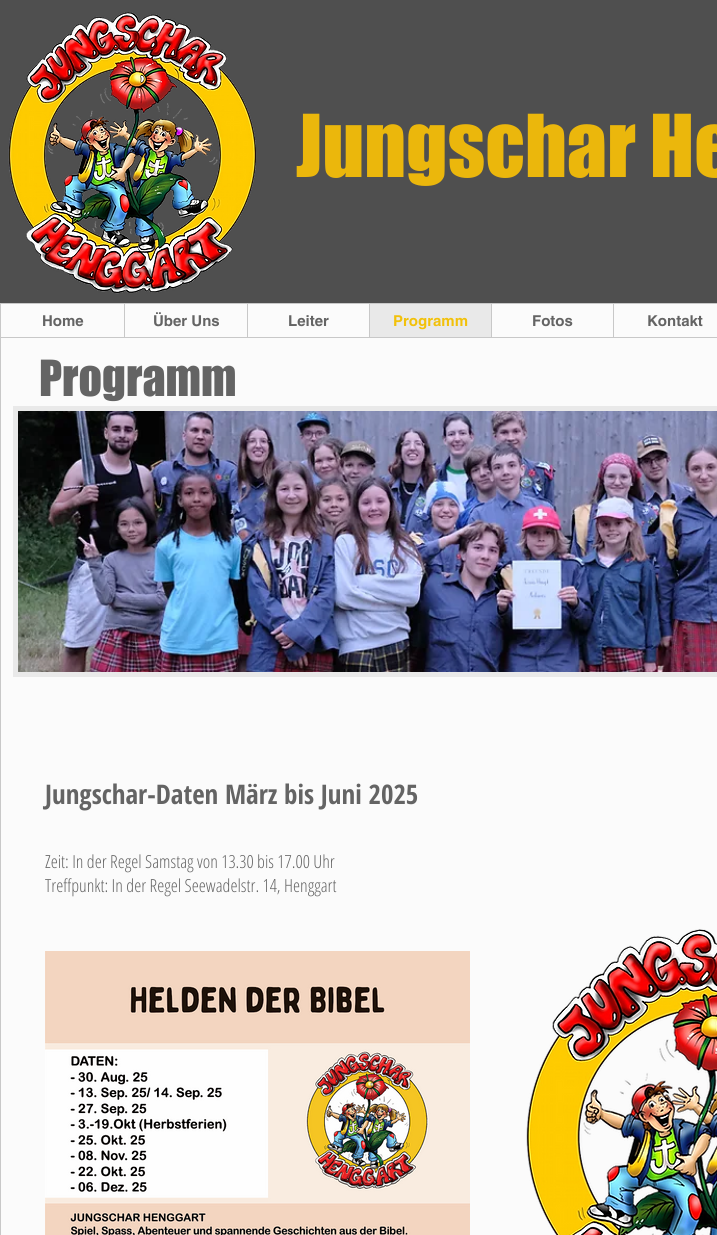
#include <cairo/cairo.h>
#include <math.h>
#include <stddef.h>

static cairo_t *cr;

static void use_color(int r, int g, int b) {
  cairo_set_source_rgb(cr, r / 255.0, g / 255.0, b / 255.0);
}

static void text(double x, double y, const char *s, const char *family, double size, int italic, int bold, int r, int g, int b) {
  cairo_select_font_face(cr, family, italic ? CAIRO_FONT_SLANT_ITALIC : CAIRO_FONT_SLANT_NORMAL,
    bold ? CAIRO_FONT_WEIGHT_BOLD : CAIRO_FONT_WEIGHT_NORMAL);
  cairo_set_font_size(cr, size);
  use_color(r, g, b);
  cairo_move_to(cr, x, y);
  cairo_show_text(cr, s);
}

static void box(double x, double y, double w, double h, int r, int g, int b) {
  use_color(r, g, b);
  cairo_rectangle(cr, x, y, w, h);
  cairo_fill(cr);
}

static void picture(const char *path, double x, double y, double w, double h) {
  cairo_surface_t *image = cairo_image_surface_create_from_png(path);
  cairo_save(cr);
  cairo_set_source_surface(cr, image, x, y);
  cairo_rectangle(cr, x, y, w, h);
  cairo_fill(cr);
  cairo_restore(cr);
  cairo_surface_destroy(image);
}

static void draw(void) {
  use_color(79, 79, 79);
  cairo_paint(cr);
  picture("img_01.png", 8, 12, 249, 282);
  use_color(251, 251, 251);
  cairo_rectangle(cr, 0.5, 303.5, 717, 34);
  cairo_fill_preserve(cr);
  use_color(200, 200, 200);
  cairo_set_line_width(cr, 1);
  cairo_stroke(cr);
  box(124, 304, 1, 33, 200, 200, 200);
  box(247, 304, 1, 33, 200, 200, 200);
  box(370, 304, 121, 33, 233, 233, 233);
  box(369, 304, 1, 33, 200, 200, 200);
  box(491, 304, 1, 33, 200, 200, 200);
  box(613, 304, 1, 33, 200, 200, 200);
  use_color(251, 251, 251);
  cairo_rectangle(cr, 0.5, 337.5, 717, 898);
  cairo_fill_preserve(cr);
  use_color(200, 200, 200);
  cairo_stroke(cr);
  cairo_rectangle(cr, 15.5, 408.5, 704, 266);
  use_color(233, 233, 233);
  cairo_set_line_width(cr, 5);
  cairo_stroke(cr);
  picture("img_02.png", 18, 411, 699, 261);
  picture("img_03.png", 45, 951, 425, 284);
  picture("img_04.png", 526, 929, 191, 306);
  text(296, 177, "Jungschar He", "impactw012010", 80, 0, 0, 235, 183, 12);
  text(42, 326, "Home", "helvetica", 15, 0, 1, 100, 100, 100);
  text(153, 326, "Über Uns", "helvetica", 15, 0, 1, 100, 100, 100);
  text(288, 326, "Leiter", "helvetica", 15, 0, 1, 100, 100, 100);
  text(393, 326, "Programm", "helvetica", 15, 0, 1, 242, 193, 11);
  text(532, 326, "Fotos", "helvetica", 15, 0, 1, 100, 100, 100);
  text(647, 326, "Kontakt", "helvetica", 15, 0, 1, 100, 100, 100);
  text(39, 396, "Programm", "impactw012010", 46, 0, 0, 100, 100, 100);
  text(45, 804, "Jungschar-Daten März bis Juni 2025", "Open Sans Condensed", 27, 0, 1, 100, 100, 100);
  text(45, 868, "Zeit: In der Regel Samstag von 13.30 bis 17.00 Uhr", "Open Sans Condensed Light", 18, 0, 0, 100, 100, 100);
  text(45, 892, "Treffpunkt: In der Regel Seewadelstr. 14, Henggart", "Open Sans Condensed Light", 18, 0, 0, 100, 100, 100);
}

int main(void) {
  cairo_surface_t *surface = cairo_image_surface_create(CAIRO_FORMAT_RGB24, 717, 1235);
  cr = cairo_create(surface);
  cairo_font_options_t *options = cairo_font_options_create();
  cairo_font_options_set_hint_metrics(options, CAIRO_HINT_METRICS_OFF);
  cairo_font_options_set_hint_style(options, CAIRO_HINT_STYLE_NONE);
  cairo_set_font_options(cr, options);
  cairo_set_miter_limit(cr, 4);
  draw();
  cairo_surface_write_to_png(surface, "out.png");
  cairo_font_options_destroy(options);
  cairo_destroy(cr);
  cairo_surface_destroy(surface);
  return 0;
}
